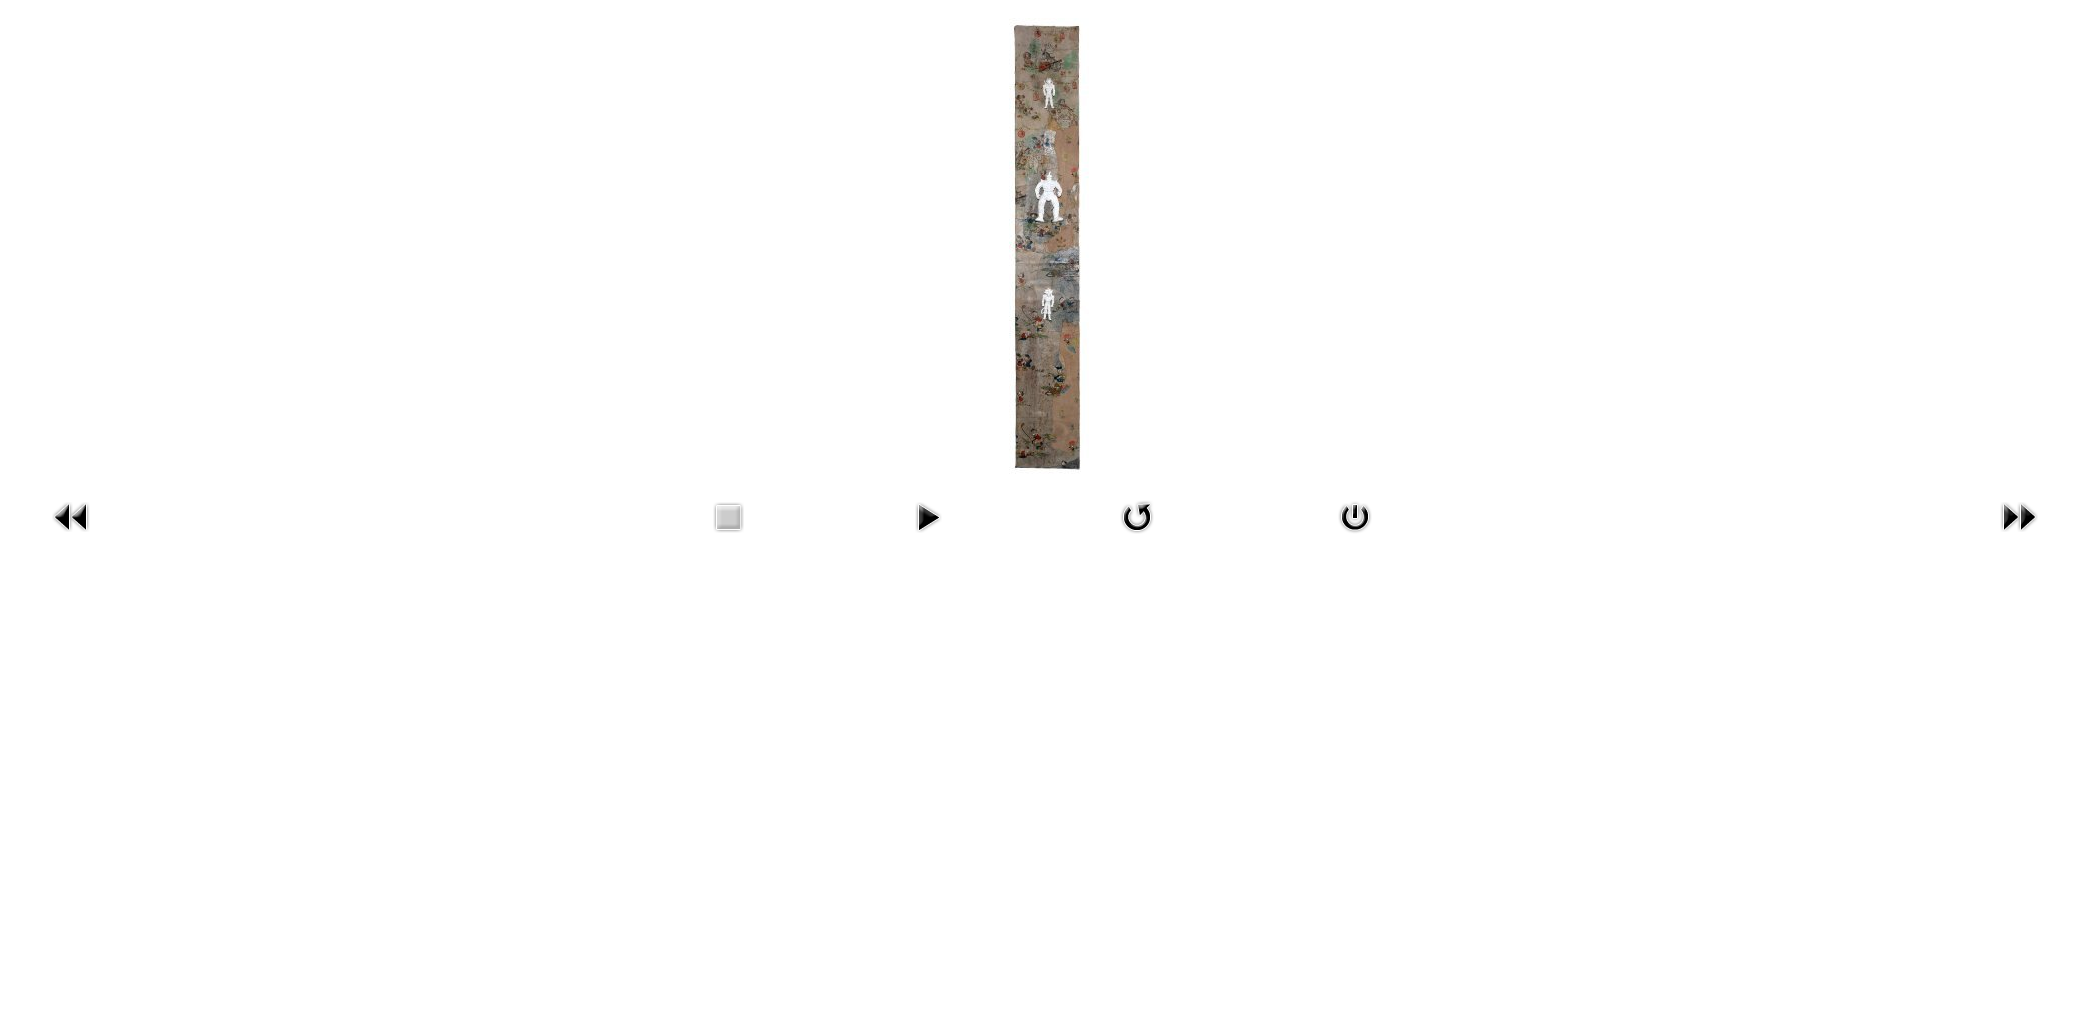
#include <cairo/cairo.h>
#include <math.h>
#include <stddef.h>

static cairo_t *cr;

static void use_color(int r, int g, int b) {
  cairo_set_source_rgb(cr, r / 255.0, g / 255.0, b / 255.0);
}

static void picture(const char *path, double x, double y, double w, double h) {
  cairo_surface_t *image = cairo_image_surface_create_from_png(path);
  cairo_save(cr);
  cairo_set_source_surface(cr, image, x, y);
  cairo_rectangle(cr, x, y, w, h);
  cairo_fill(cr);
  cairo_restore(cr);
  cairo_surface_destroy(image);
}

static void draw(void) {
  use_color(255, 255, 255);
  cairo_paint(cr);
  picture("img_01.png", 1009, 18, 80, 456);
  picture("img_02.png", 52, 502, 38, 30);
  picture("img_03.png", 713, 502, 31, 31);
  picture("img_04.png", 915, 502, 27, 31);
  picture("img_05.png", 1120, 500, 34, 34);
  picture("img_06.png", 1338, 501, 34, 33);
  picture("img_07.png", 2000, 502, 38, 30);
}

int main(void) {
  cairo_surface_t *surface = cairo_image_surface_create(CAIRO_FORMAT_RGB24, 2091, 1032);
  cr = cairo_create(surface);
  cairo_font_options_t *options = cairo_font_options_create();
  cairo_font_options_set_hint_metrics(options, CAIRO_HINT_METRICS_OFF);
  cairo_font_options_set_hint_style(options, CAIRO_HINT_STYLE_NONE);
  cairo_set_font_options(cr, options);
  cairo_set_miter_limit(cr, 4);
  draw();
  cairo_surface_write_to_png(surface, "out.png");
  cairo_font_options_destroy(options);
  cairo_destroy(cr);
  cairo_surface_destroy(surface);
  return 0;
}
